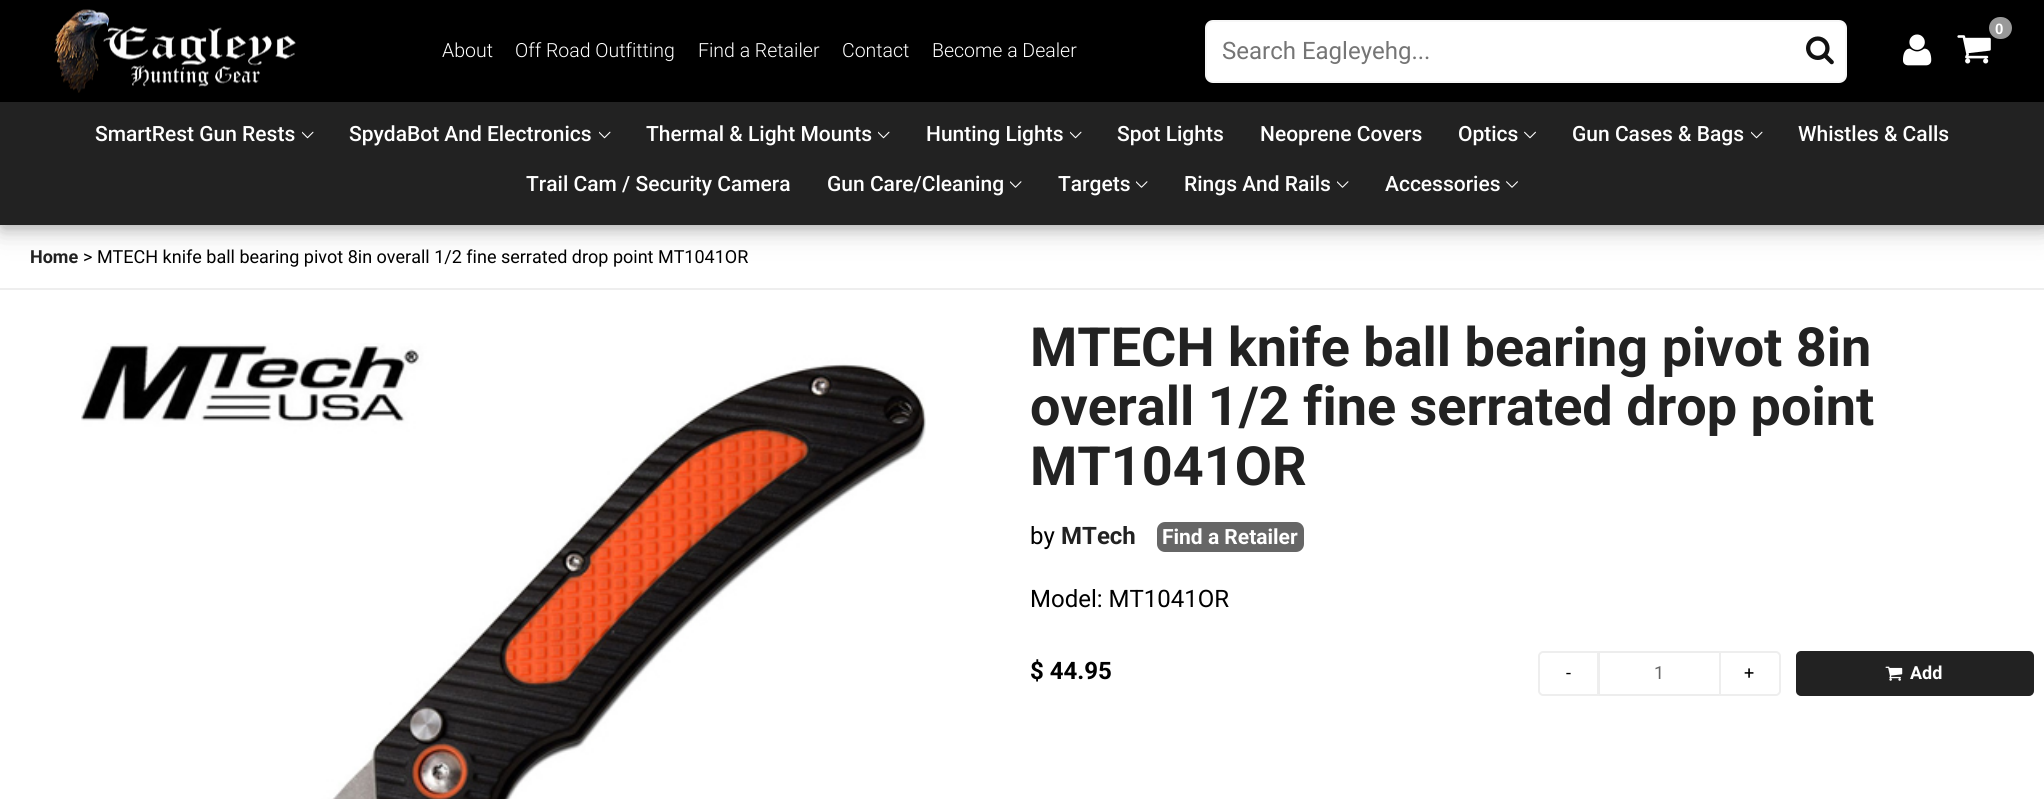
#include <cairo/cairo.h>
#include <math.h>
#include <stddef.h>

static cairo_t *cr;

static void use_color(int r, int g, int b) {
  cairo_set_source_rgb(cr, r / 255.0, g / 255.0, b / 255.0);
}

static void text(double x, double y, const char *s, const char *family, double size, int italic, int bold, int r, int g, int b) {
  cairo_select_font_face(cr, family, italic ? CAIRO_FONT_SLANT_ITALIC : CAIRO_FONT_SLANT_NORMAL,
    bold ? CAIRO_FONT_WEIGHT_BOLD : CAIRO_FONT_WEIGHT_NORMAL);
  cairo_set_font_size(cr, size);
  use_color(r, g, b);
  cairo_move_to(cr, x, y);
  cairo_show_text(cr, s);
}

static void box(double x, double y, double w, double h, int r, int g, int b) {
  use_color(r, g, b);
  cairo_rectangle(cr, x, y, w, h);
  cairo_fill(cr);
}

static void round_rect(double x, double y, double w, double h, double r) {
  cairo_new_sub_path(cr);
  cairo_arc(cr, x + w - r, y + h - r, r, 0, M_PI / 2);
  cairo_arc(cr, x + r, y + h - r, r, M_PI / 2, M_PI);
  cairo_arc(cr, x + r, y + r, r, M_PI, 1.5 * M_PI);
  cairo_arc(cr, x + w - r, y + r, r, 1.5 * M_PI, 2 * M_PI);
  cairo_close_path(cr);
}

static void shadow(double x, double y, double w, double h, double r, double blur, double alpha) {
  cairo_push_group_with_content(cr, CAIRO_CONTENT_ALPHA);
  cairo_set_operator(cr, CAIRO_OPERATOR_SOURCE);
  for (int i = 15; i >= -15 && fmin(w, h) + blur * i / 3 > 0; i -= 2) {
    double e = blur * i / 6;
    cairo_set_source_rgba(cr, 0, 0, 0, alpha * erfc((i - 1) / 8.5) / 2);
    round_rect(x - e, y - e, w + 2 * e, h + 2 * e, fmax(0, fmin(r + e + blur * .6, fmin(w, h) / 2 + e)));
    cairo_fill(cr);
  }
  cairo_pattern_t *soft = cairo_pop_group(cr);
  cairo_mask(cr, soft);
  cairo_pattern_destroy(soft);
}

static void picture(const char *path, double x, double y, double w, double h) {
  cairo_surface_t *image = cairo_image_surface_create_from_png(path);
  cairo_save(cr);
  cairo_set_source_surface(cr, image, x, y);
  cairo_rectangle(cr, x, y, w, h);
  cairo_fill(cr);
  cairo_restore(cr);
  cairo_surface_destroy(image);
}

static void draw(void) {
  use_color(255, 255, 255);
  cairo_paint(cr);
  use_color(0, 0, 0);
  shadow(3, 3, 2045, 225, 0, 7.5, 0.2);
  box(0, 0, 2044, 102, 0, 0, 0);
  use_color(0, 0, 0);
  shadow(0, 105, 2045, 123, 0, 15, 0.2);
  picture("img_01.png", 54, 9, 242, 84);
  picture("img_02.png", 1957, 35, 34, 29);
  use_color(153, 153, 153);
  round_rect(1989, 17, 23, 22, 11);
  cairo_fill(cr);
  picture("img_03.png", 1903, 34, 29, 32);
  use_color(255, 255, 255);
  round_rect(1206, 21, 640, 61, 7);
  cairo_fill_preserve(cr);
  use_color(247, 247, 247);
  cairo_stroke(cr);
  picture("img_04.png", 1806, 36, 28, 29);
  box(0, 102, 2044, 123, 34, 34, 34);
  picture("img_05.png", 302, 131, 12, 8);
  picture("img_05.png", 599, 131, 12, 8);
  picture("img_05.png", 878, 131, 12, 8);
  picture("img_05.png", 1070, 131, 12, 8);
  picture("img_06.png", 1524, 131, 12, 8);
  picture("img_05.png", 1751, 131, 12, 8);
  picture("img_07.png", 1010, 181, 12, 7);
  picture("img_07.png", 1136, 181, 12, 7);
  picture("img_07.png", 1337, 181, 12, 7);
  picture("img_08.png", 1506, 181, 12, 7);
  box(0, 288, 2044, 2, 238, 238, 238);
  picture("img_09.png", 81, 343, 845, 456);
  use_color(102, 102, 102);
  round_rect(1157, 522, 147, 30, 8);
  cairo_fill(cr);
  cairo_rectangle(cr, 1599, 652, 121, 43);
  use_color(237, 237, 237);
  cairo_stroke(cr);
  use_color(255, 255, 255);
  cairo_new_path(cr);
  cairo_move_to(cr, 1543, 652);
  cairo_line_to(cr, 1598, 652);
  cairo_line_to(cr, 1598, 695);
  cairo_line_to(cr, 1543, 695);
  cairo_curve_to(cr, 1541, 695, 1539, 693, 1539, 691);
  cairo_line_to(cr, 1539, 656);
  cairo_curve_to(cr, 1539, 654, 1541, 652, 1543, 652);
  cairo_close_path(cr);
  cairo_fill_preserve(cr);
  use_color(238, 238, 238);
  cairo_stroke(cr);
  use_color(255, 255, 255);
  cairo_new_path(cr);
  cairo_move_to(cr, 1720, 652);
  cairo_line_to(cr, 1776, 652);
  cairo_curve_to(cr, 1778, 652, 1780, 654, 1780, 656);
  cairo_line_to(cr, 1780, 691);
  cairo_curve_to(cr, 1780, 693, 1778, 695, 1776, 695);
  cairo_line_to(cr, 1720, 695);
  cairo_close_path(cr);
  cairo_fill_preserve(cr);
  use_color(238, 238, 238);
  cairo_stroke(cr);
  use_color(34, 34, 34);
  round_rect(1797, 652, 236, 43, 4);
  cairo_fill_preserve(cr);
  cairo_stroke(cr);
  picture("img_10.png", 1885, 666, 18, 15);
  text(1995, 34, "0", "Liberation Sans", 15, 0, 1, 255, 255, 255);
  text(442, 57, "About", "Roboto Light", 19.5, 0, 0, 255, 255, 255);
  text(515, 57, "Off Road Outfitting", "Roboto Light", 19.5, 0, 0, 255, 255, 255);
  text(698, 57, "Find a Retailer", "Roboto Light", 19.5, 0, 0, 255, 255, 255);
  text(842, 57, "Contact", "Roboto Light", 19.5, 0, 0, 255, 255, 255);
  text(932, 57, "Become a Dealer", "Roboto Light", 19.5, 0, 0, 255, 255, 255);
  text(1222, 59, "Search Eagleyehg...", "Roboto", 24, 0, 0, 117, 117, 117);
  text(95, 141, "SmartRest Gun Rests", "Roboto Medium", 21, 0, 0, 255, 255, 255);
  text(349, 141, "SpydaBot And Electronics", "Roboto Medium", 21, 0, 0, 255, 255, 255);
  text(646, 141, "Thermal & Light Mounts", "Roboto Medium", 21, 0, 0, 255, 255, 255);
  text(926, 141, "Hunting Lights", "Roboto Medium", 21, 0, 0, 255, 255, 255);
  text(1117, 141, "Spot Lights", "Roboto Medium", 21, 0, 0, 255, 255, 255);
  text(1260, 141, "Neoprene Covers", "Roboto Medium", 21, 0, 0, 255, 255, 255);
  text(1458, 141, "Optics", "Roboto Medium", 21, 0, 0, 255, 255, 255);
  text(1572, 141, "Gun Cases & Bags", "Roboto Medium", 21, 0, 0, 255, 255, 255);
  text(1798, 141, "Whistles & Calls", "Roboto Medium", 21, 0, 0, 255, 255, 255);
  text(526, 191, "Trail Cam / Security Camera", "Roboto Medium", 21, 0, 0, 255, 255, 255);
  text(827, 191, "Gun Care/Cleaning", "Roboto Medium", 21, 0, 0, 255, 255, 255);
  text(1058, 191, "Targets", "Roboto Medium", 21, 0, 0, 255, 255, 255);
  text(1184, 191, "Rings And Rails", "Roboto Medium", 21, 0, 0, 255, 255, 255);
  text(1385, 191, "Accessories", "Roboto Medium", 21, 0, 0, 255, 255, 255);
  text(30, 263, "Home", "Roboto", 18, 0, 1, 34, 34, 34);
  text(83, 263, "> MTECH knife ball bearing pivot 8in overall 1/2 fine serrated drop point MT1041OR", "Roboto", 18, 0, 0, 0, 0, 0);
  text(1030, 366, "MTECH knife ball bearing pivot 8in", "Roboto", 54, 0, 1, 34, 34, 34);
  text(1030, 425, "overall 1/2 fine serrated drop point", "Roboto", 54, 0, 1, 34, 34, 34);
  text(1030, 485, "MT1041OR", "Roboto", 54, 0, 1, 34, 34, 34);
  text(1030, 544, "by", "Roboto", 24, 0, 0, 0, 0, 0);
  text(1061, 544, "MTech", "Roboto", 24, 0, 1, 34, 34, 34);
  text(1162, 544, "Find a Retailer", "Roboto", 21, 0, 1, 255, 255, 255);
  text(1030, 607, "Model: MT1041OR", "Roboto", 24, 0, 0, 0, 0, 0);
  text(1030, 679, "$ 44.95", "Roboto", 24, 0, 1, 0, 0, 0);
  text(1566, 679, "-", "Roboto", 18, 0, 0, 0, 0, 0);
  text(1654, 679, "1", "Roboto", 18, 0, 0, 102, 102, 102);
  text(1744, 679, "+", "Roboto", 18, 0, 0, 0, 0, 0);
  text(1910, 679, "Add", "Roboto", 18, 0, 1, 255, 255, 255);
}

int main(void) {
  cairo_surface_t *surface = cairo_image_surface_create(CAIRO_FORMAT_RGB24, 2044, 799);
  cr = cairo_create(surface);
  cairo_font_options_t *options = cairo_font_options_create();
  cairo_font_options_set_hint_metrics(options, CAIRO_HINT_METRICS_OFF);
  cairo_font_options_set_hint_style(options, CAIRO_HINT_STYLE_NONE);
  cairo_set_font_options(cr, options);
  cairo_set_miter_limit(cr, 4);
  draw();
  cairo_surface_write_to_png(surface, "out.png");
  cairo_font_options_destroy(options);
  cairo_destroy(cr);
  cairo_surface_destroy(surface);
  return 0;
}
